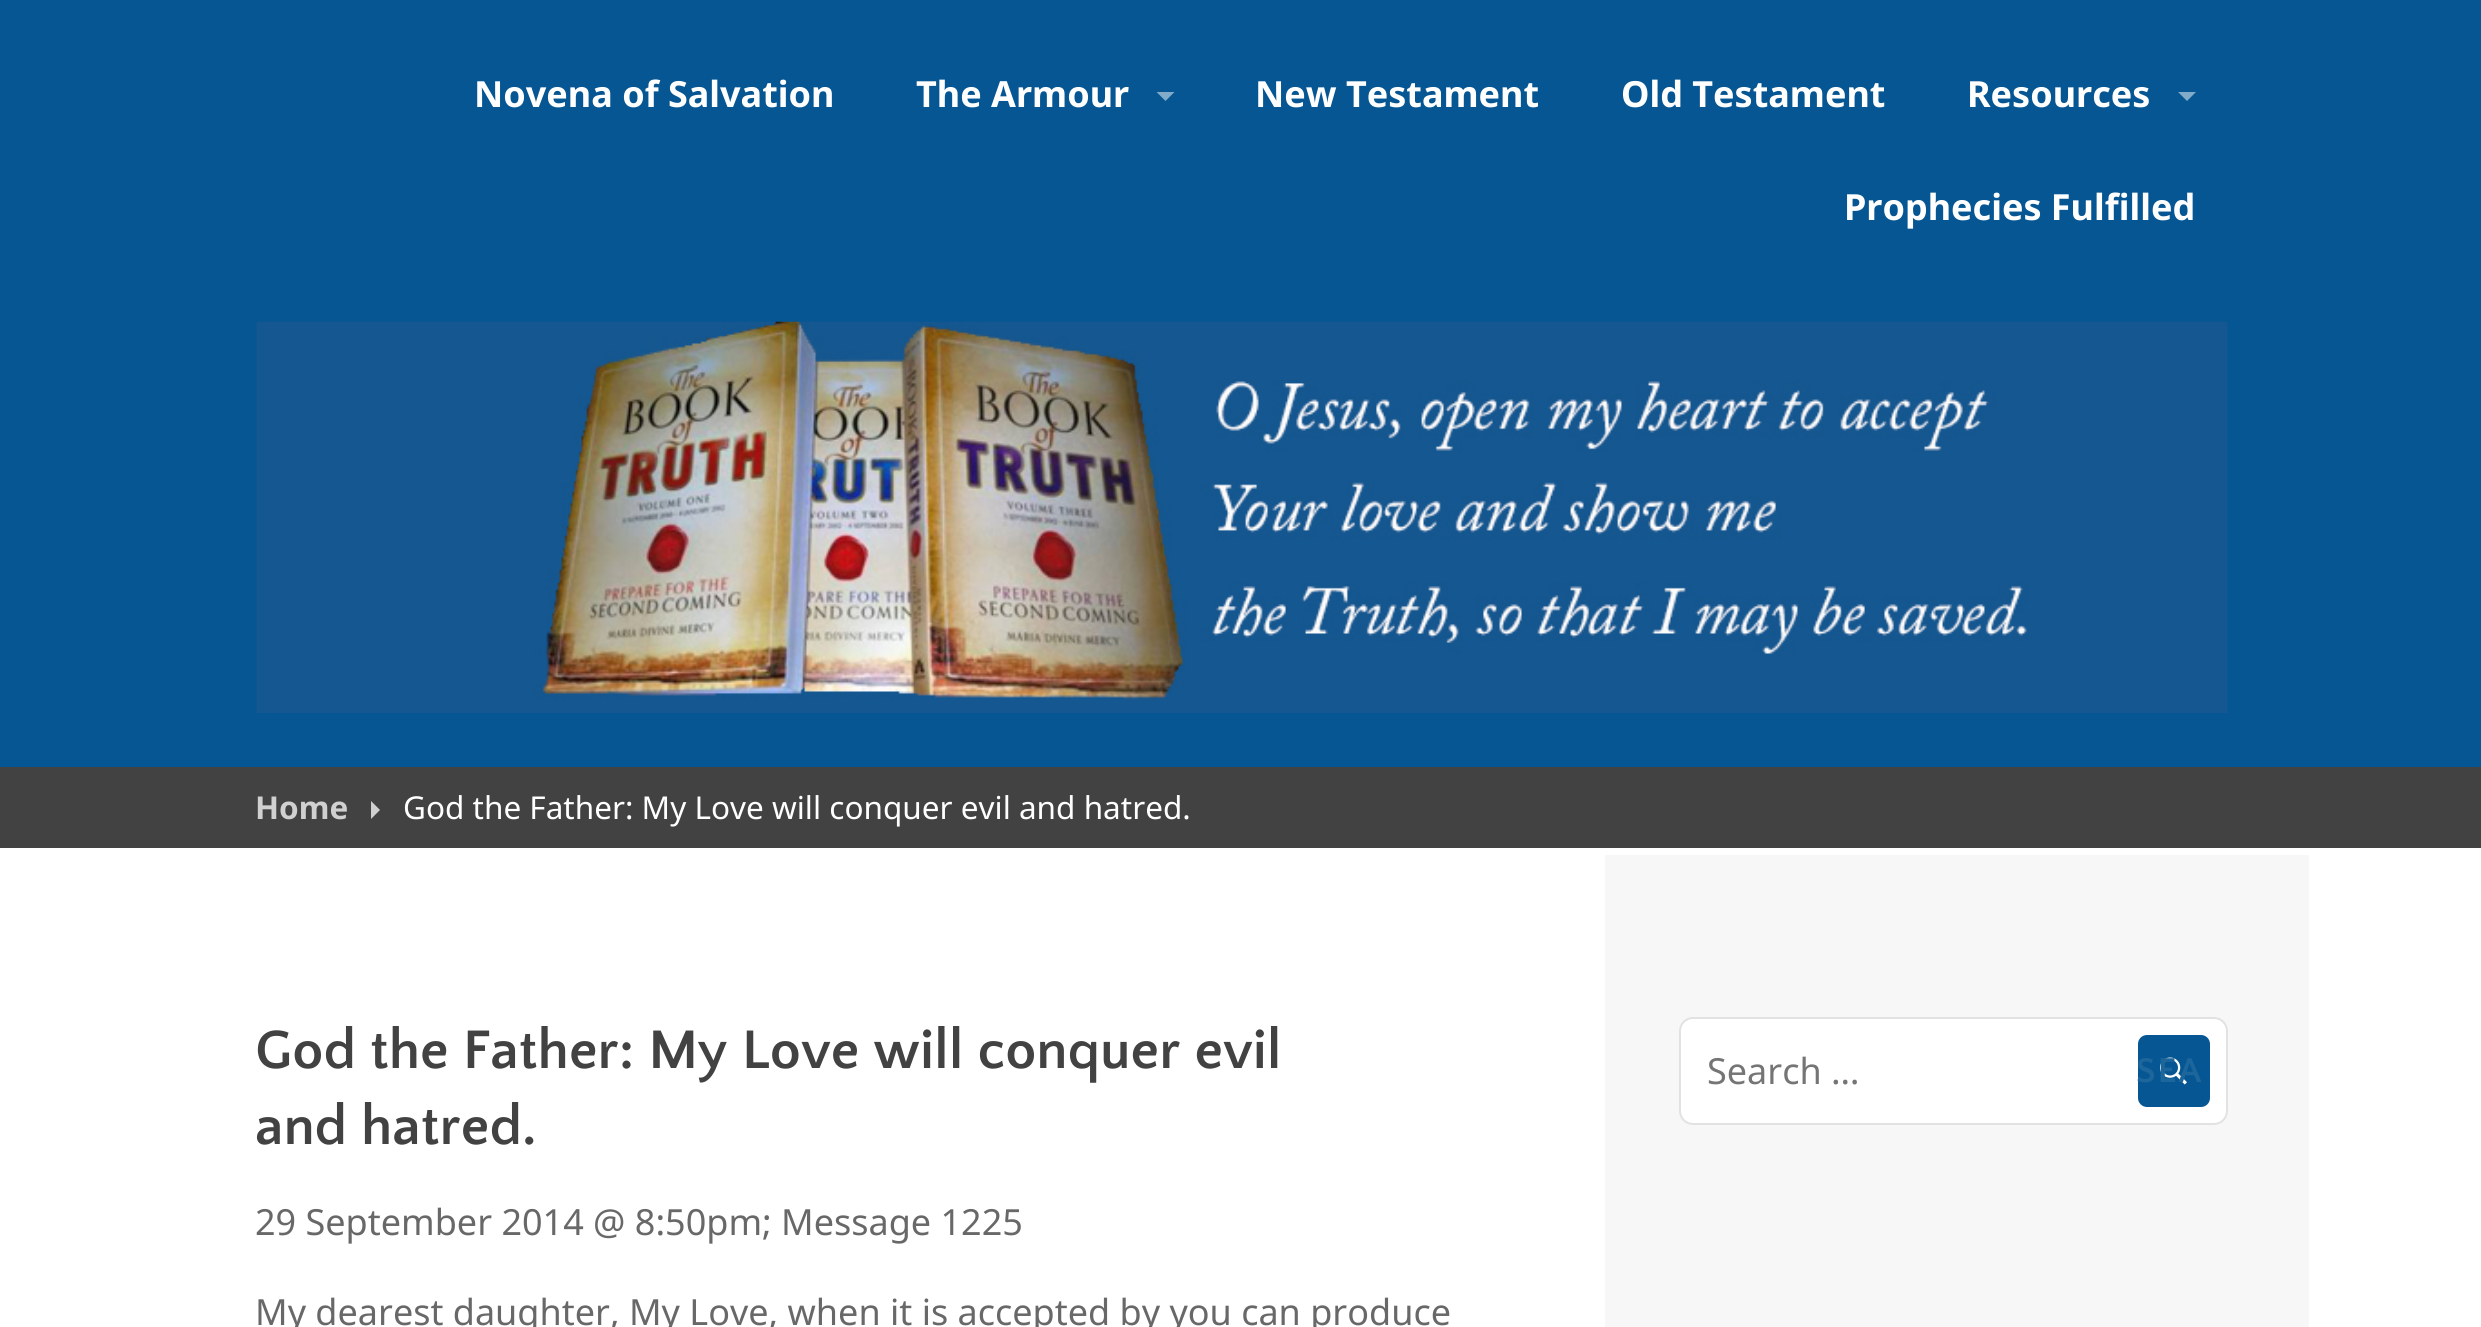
#include <cairo/cairo.h>
#include <math.h>
#include <stddef.h>

static cairo_t *cr;

static void use_color(int r, int g, int b) {
  cairo_set_source_rgb(cr, r / 255.0, g / 255.0, b / 255.0);
}

static void text(double x, double y, const char *s, const char *family, double size, int italic, int bold, int r, int g, int b) {
  cairo_select_font_face(cr, family, italic ? CAIRO_FONT_SLANT_ITALIC : CAIRO_FONT_SLANT_NORMAL,
    bold ? CAIRO_FONT_WEIGHT_BOLD : CAIRO_FONT_WEIGHT_NORMAL);
  cairo_set_font_size(cr, size);
  use_color(r, g, b);
  cairo_move_to(cr, x, y);
  cairo_show_text(cr, s);
}

static void spaced_text(double x, double y, const char *s, double letter, double word) {
  cairo_move_to(cr, x, y);
  while (*s) {
    char ch[5] = {0};
    int n = 0;
    do ch[n++] = *s++; while ((*s & 0xC0) == 0x80);
    cairo_show_text(cr, ch);
    cairo_rel_move_to(cr, letter + word * (*ch == ' '), 0);
  }
}

static void box(double x, double y, double w, double h, int r, int g, int b) {
  use_color(r, g, b);
  cairo_rectangle(cr, x, y, w, h);
  cairo_fill(cr);
}

static void round_rect(double x, double y, double w, double h, double r) {
  cairo_new_sub_path(cr);
  cairo_arc(cr, x + w - r, y + h - r, r, 0, M_PI / 2);
  cairo_arc(cr, x + r, y + h - r, r, M_PI / 2, M_PI);
  cairo_arc(cr, x + r, y + r, r, M_PI, 1.5 * M_PI);
  cairo_arc(cr, x + w - r, y + r, r, 1.5 * M_PI, 2 * M_PI);
  cairo_close_path(cr);
}

static void picture(const char *path, double x, double y, double w, double h) {
  cairo_surface_t *image = cairo_image_surface_create_from_png(path);
  cairo_save(cr);
  cairo_set_source_surface(cr, image, x, y);
  cairo_rectangle(cr, x, y, w, h);
  cairo_fill(cr);
  cairo_restore(cr);
  cairo_surface_destroy(image);
}

static void draw(void) {
  use_color(255, 255, 255);
  cairo_paint(cr);
  box(0, 0, 2481, 767, 5, 86, 146);
  use_color(130, 171, 201);
  cairo_new_path(cr);
  cairo_move_to(cr, 1156.5, 92);
  cairo_line_to(cr, 1174.5, 92);
  cairo_line_to(cr, 1165.5, 101);
  cairo_close_path(cr);
  cairo_fill(cr);
  cairo_new_path(cr);
  cairo_move_to(cr, 2178, 92);
  cairo_line_to(cr, 2196, 92);
  cairo_line_to(cr, 2187, 101);
  cairo_close_path(cr);
  cairo_fill(cr);
  picture("img_01.png", 256, 321, 1972, 392);
  box(0, 767, 2481, 81, 66, 66, 66);
  use_color(208, 208, 208);
  cairo_new_path(cr);
  cairo_move_to(cr, 371, 819);
  cairo_line_to(cr, 371, 801);
  cairo_line_to(cr, 380, 810);
  cairo_close_path(cr);
  cairo_fill(cr);
  box(1605, 855, 704, 472, 247, 247, 247);
  use_color(255, 255, 255);
  round_rect(1680, 1018, 547, 106, 13);
  cairo_fill_preserve(cr);
  use_color(226, 226, 226);
  cairo_stroke(cr);
  use_color(5, 86, 146);
  round_rect(2138, 1035, 72, 72, 9);
  cairo_fill(cr);
  picture("img_02.png", 2160, 1057, 27, 28);
  text(474, 107, "Novena of Salvation", "Noto Sans", 36, 0, 1, 255, 255, 255);
  text(916, 107, "The Armour", "Noto Sans", 36, 0, 1, 255, 255, 255);
  text(1255, 107, "New Testament", "Noto Sans", 36, 0, 1, 255, 255, 255);
  text(1621, 107, "Old Testament", "Noto Sans", 36, 0, 1, 255, 255, 255);
  text(1967, 107, "Resources", "Noto Sans", 36, 0, 1, 255, 255, 255);
  text(1844, 220, "Prophecies Fulfilled", "Noto Sans", 36, 0, 1, 255, 255, 255);
  text(255, 819, "Home", "Noto Sans", 31.5, 0, 1, 208, 208, 208);
  text(403, 819, "God the Father: My Love will conquer evil and hatred.", "Noto Sans", 31.5, 0, 0, 255, 255, 255);
  text(255, 1068, "God the Father: My Love will conquer evil", "Quattrocento Sans", 56.75, 0, 1, 66, 66, 66);
  text(255, 1144, "and hatred.", "Quattrocento Sans", 56.75, 0, 1, 66, 66, 66);
  text(255, 1235, "29 September 2014 @ 8:50pm; Message 1225", "Noto Sans", 36, 0, 0, 104, 104, 104);
  text(255, 1325, "My dearest daughter, My Love, when it is accepted by you can produce", "Noto Sans", 36, 0, 0, 104, 104, 104);
  text(1707, 1084, "Search …", "Noto Sans", 36, 0, 0, 117, 117, 117);
  cairo_select_font_face(cr, "Quattrocento Sans", CAIRO_FONT_SLANT_NORMAL, CAIRO_FONT_WEIGHT_BOLD);
  use_color(29, 102, 156);
  spaced_text(2136, 1082, "SEA", 2, 0);
}

int main(void) {
  cairo_surface_t *surface = cairo_image_surface_create(CAIRO_FORMAT_RGB24, 2481, 1327);
  cr = cairo_create(surface);
  cairo_font_options_t *options = cairo_font_options_create();
  cairo_font_options_set_hint_metrics(options, CAIRO_HINT_METRICS_OFF);
  cairo_font_options_set_hint_style(options, CAIRO_HINT_STYLE_NONE);
  cairo_set_font_options(cr, options);
  cairo_set_miter_limit(cr, 4);
  draw();
  cairo_surface_write_to_png(surface, "out.png");
  cairo_font_options_destroy(options);
  cairo_destroy(cr);
  cairo_surface_destroy(surface);
  return 0;
}
